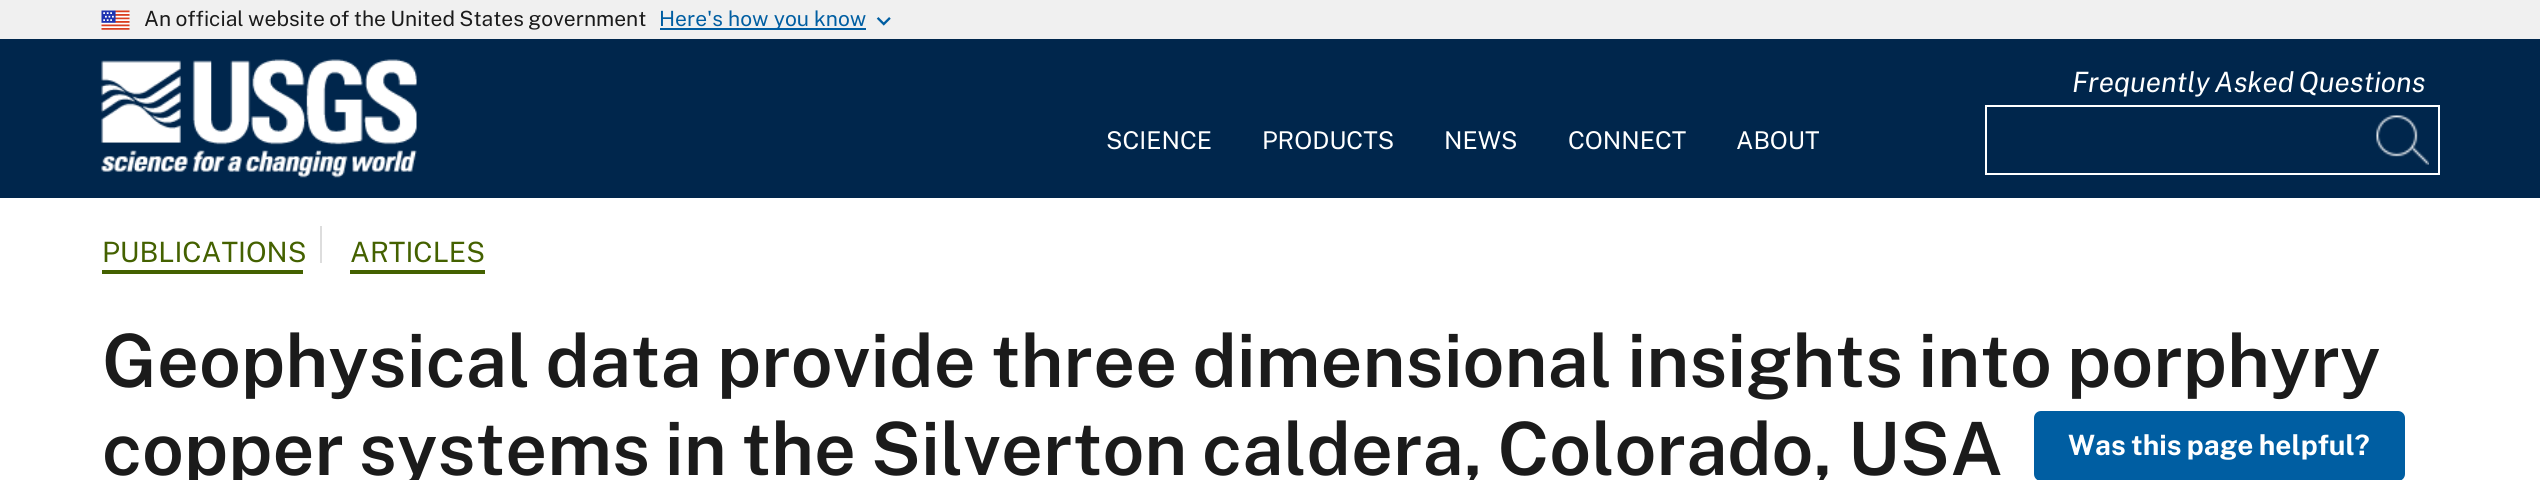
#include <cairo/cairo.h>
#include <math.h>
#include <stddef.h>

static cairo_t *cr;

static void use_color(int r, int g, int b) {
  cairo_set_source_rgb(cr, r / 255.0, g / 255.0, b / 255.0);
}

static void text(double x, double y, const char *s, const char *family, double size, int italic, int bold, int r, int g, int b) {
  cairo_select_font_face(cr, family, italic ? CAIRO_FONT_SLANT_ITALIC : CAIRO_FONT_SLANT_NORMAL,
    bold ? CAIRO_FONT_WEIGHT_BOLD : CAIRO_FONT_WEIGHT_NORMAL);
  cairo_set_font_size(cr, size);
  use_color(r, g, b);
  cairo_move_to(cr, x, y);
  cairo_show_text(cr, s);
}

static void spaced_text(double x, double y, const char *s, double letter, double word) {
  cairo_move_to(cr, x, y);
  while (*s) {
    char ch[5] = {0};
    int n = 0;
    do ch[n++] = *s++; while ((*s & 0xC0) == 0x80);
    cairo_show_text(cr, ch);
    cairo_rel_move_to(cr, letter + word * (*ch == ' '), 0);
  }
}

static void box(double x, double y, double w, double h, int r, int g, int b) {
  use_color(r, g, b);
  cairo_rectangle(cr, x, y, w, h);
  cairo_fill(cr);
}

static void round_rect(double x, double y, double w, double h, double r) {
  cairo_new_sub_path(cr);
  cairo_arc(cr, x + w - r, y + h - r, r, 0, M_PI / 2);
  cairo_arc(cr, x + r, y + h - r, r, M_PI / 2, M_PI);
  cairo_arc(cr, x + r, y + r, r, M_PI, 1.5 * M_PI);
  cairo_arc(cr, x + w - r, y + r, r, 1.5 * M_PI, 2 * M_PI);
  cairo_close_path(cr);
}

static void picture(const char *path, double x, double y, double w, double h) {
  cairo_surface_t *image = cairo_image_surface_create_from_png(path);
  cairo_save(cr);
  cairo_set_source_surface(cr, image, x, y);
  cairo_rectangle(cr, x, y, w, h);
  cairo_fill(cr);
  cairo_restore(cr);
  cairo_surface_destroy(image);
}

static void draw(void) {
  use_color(255, 255, 255);
  cairo_paint(cr);
  box(0, 0, 2540, 39, 240, 240, 240);
  picture("img_01.png", 101, 10, 29, 20);
  box(660, 28, 206, 2, 0, 94, 162);
  picture("img_02.png", 876, 17, 15, 9);
  box(0, 39, 2540, 159, 0, 38, 76);
  picture("img_03.png", 101, 59, 316, 119);
  cairo_rectangle(cr, 1986, 106, 453, 68);
  use_color(255, 255, 255);
  cairo_stroke(cr);
  picture("img_04.png", 2376, 115, 53, 50);
  box(102, 270, 201, 4, 68, 97, 0);
  box(320, 226, 2, 37, 221, 221, 221);
  box(350, 270, 135, 4, 68, 97, 0);
  use_color(0, 94, 162);
  round_rect(2034, 411, 371, 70, 7);
  cairo_fill(cr);
  cairo_select_font_face(cr, "Public Sans", CAIRO_FONT_SLANT_NORMAL, CAIRO_FONT_WEIGHT_NORMAL);
  cairo_set_font_size(cr, 21);
  use_color(27, 27, 27);
  spaced_text(144, 26, "An official website of the United States government", 0, -0.75);
  text(659, 26, "Here's how you know", "Public Sans", 21, 0, 0, 0, 94, 162);
  cairo_select_font_face(cr, "Public Sans", CAIRO_FONT_SLANT_ITALIC, CAIRO_FONT_WEIGHT_NORMAL);
  cairo_set_font_size(cr, 28);
  use_color(255, 255, 255);
  spaced_text(2072, 92, "Frequently Asked Questions", 0, -2);
  text(1106, 149, "SCIENCE", "Public Sans", 24.5, 0, 0, 255, 255, 255);
  text(1262, 149, "PRODUCTS", "Public Sans", 24.5, 0, 0, 255, 255, 255);
  text(1444, 149, "NEWS", "Public Sans", 24.5, 0, 0, 255, 255, 255);
  text(1568, 149, "CONNECT", "Public Sans", 24.5, 0, 0, 255, 255, 255);
  text(1736, 149, "ABOUT", "Public Sans", 24.5, 0, 0, 255, 255, 255);
  text(102, 262, "PUBLICATIONS", "Public Sans", 28, 0, 0, 68, 97, 0);
  text(350, 262, "ARTICLES", "Public Sans", 28, 0, 0, 68, 97, 0);
  cairo_select_font_face(cr, "Public Sans SemiBold", CAIRO_FONT_SLANT_NORMAL, CAIRO_FONT_WEIGHT_NORMAL);
  cairo_set_font_size(cr, 73.5);
  use_color(27, 27, 27);
  spaced_text(102, 387, "Geophysical data provide three dimensional insights into porphyry", 0, -2);
  spaced_text(102, 475, "copper systems in the Silverton caldera, Colorado, USA", 0, -2.5);
  cairo_select_font_face(cr, "Public Sans", CAIRO_FONT_SLANT_NORMAL, CAIRO_FONT_WEIGHT_BOLD);
  cairo_set_font_size(cr, 28);
  use_color(255, 255, 255);
  spaced_text(2068, 455, "Was this page helpful?", 0, -1);
}

int main(void) {
  cairo_surface_t *surface = cairo_image_surface_create(CAIRO_FORMAT_RGB24, 2540, 480);
  cr = cairo_create(surface);
  cairo_font_options_t *options = cairo_font_options_create();
  cairo_font_options_set_hint_metrics(options, CAIRO_HINT_METRICS_OFF);
  cairo_font_options_set_hint_style(options, CAIRO_HINT_STYLE_NONE);
  cairo_set_font_options(cr, options);
  cairo_set_miter_limit(cr, 4);
  draw();
  cairo_surface_write_to_png(surface, "out.png");
  cairo_font_options_destroy(options);
  cairo_destroy(cr);
  cairo_surface_destroy(surface);
  return 0;
}
